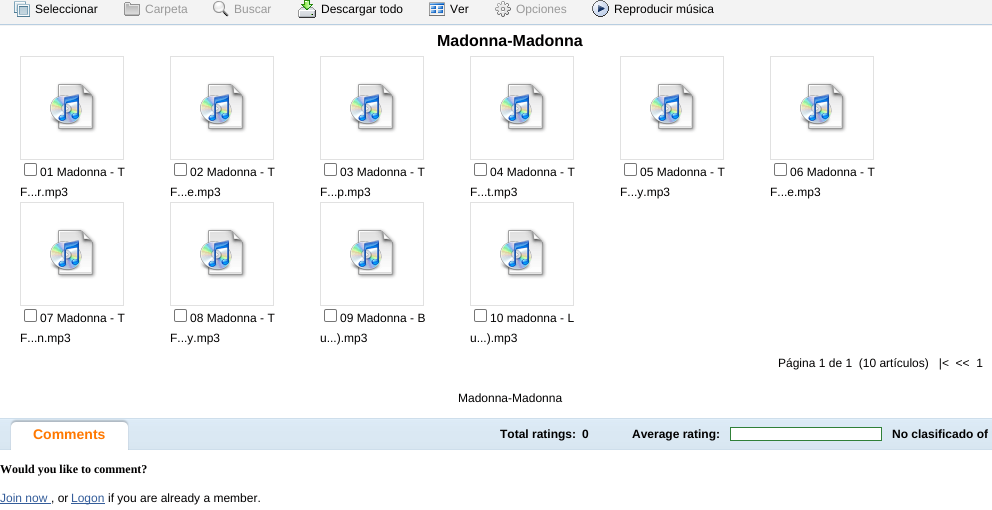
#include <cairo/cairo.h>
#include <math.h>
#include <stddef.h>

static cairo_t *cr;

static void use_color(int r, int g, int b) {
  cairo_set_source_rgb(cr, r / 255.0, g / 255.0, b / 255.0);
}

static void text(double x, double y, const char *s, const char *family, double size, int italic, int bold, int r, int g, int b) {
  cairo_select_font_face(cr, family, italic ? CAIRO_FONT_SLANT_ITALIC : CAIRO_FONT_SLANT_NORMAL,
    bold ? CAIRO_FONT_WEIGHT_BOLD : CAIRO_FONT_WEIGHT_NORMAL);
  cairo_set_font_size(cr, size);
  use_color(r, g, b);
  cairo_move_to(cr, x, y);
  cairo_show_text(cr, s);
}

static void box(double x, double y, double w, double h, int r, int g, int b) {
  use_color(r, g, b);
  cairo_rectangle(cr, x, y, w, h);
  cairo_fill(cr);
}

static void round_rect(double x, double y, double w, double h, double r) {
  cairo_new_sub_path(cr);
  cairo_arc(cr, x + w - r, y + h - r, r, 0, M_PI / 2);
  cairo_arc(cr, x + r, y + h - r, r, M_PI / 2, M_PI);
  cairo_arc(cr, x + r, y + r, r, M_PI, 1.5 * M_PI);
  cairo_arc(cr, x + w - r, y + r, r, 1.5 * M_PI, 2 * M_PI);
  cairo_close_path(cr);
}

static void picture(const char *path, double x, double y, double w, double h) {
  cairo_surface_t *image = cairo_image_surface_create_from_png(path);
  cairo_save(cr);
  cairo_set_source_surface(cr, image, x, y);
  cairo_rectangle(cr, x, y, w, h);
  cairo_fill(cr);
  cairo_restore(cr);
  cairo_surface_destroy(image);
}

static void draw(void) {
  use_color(255, 255, 255);
  cairo_paint(cr);
  picture("img_01.png", 0, 0, 992, 26);
  picture("img_02.png", 14, 1, 16, 16);
  picture("img_03.png", 124, 2, 16, 14);
  picture("img_04.png", 213, 1, 16, 16);
  picture("img_05.png", 298, 0, 18, 18);
  picture("img_06.png", 429, 2, 16, 14);
  picture("img_07.png", 495, 1, 16, 16);
  picture("img_08.png", 592, 0, 17, 17);
  cairo_rectangle(cr, 20.5, 56.5, 103, 103);
  use_color(225, 225, 225);
  cairo_set_line_width(cr, 1);
  cairo_stroke(cr);
  picture("img_09.png", 50, 82, 47, 51);
  round_rect(24.5, 163.5, 12, 12, 1.5);
  use_color(118, 118, 118);
  cairo_stroke(cr);
  cairo_rectangle(cr, 170.5, 56.5, 103, 103);
  use_color(225, 225, 225);
  cairo_stroke(cr);
  picture("img_09.png", 200, 82, 47, 51);
  round_rect(174.5, 163.5, 12, 12, 1.5);
  use_color(118, 118, 118);
  cairo_stroke(cr);
  cairo_rectangle(cr, 320.5, 56.5, 103, 103);
  use_color(225, 225, 225);
  cairo_stroke(cr);
  picture("img_09.png", 350, 82, 47, 51);
  round_rect(324.5, 163.5, 12, 12, 1.5);
  use_color(118, 118, 118);
  cairo_stroke(cr);
  cairo_rectangle(cr, 470.5, 56.5, 103, 103);
  use_color(225, 225, 225);
  cairo_stroke(cr);
  picture("img_09.png", 500, 82, 47, 51);
  round_rect(474.5, 163.5, 12, 12, 1.5);
  use_color(118, 118, 118);
  cairo_stroke(cr);
  cairo_rectangle(cr, 620.5, 56.5, 103, 103);
  use_color(225, 225, 225);
  cairo_stroke(cr);
  picture("img_09.png", 650, 82, 47, 51);
  round_rect(624.5, 163.5, 12, 12, 1.5);
  use_color(118, 118, 118);
  cairo_stroke(cr);
  cairo_rectangle(cr, 770.5, 56.5, 103, 103);
  use_color(225, 225, 225);
  cairo_stroke(cr);
  picture("img_09.png", 800, 82, 47, 51);
  round_rect(774.5, 163.5, 12, 12, 1.5);
  use_color(118, 118, 118);
  cairo_stroke(cr);
  cairo_rectangle(cr, 20.5, 202.5, 103, 103);
  use_color(225, 225, 225);
  cairo_stroke(cr);
  picture("img_09.png", 50, 228, 47, 51);
  round_rect(24.5, 309.5, 12, 12, 1.5);
  use_color(118, 118, 118);
  cairo_stroke(cr);
  cairo_rectangle(cr, 170.5, 202.5, 103, 103);
  use_color(225, 225, 225);
  cairo_stroke(cr);
  picture("img_09.png", 200, 228, 47, 51);
  round_rect(174.5, 309.5, 12, 12, 1.5);
  use_color(118, 118, 118);
  cairo_stroke(cr);
  cairo_rectangle(cr, 320.5, 202.5, 103, 103);
  use_color(225, 225, 225);
  cairo_stroke(cr);
  picture("img_09.png", 350, 228, 47, 51);
  round_rect(324.5, 309.5, 12, 12, 1.5);
  use_color(118, 118, 118);
  cairo_stroke(cr);
  cairo_rectangle(cr, 470.5, 202.5, 103, 103);
  use_color(225, 225, 225);
  cairo_stroke(cr);
  picture("img_09.png", 500, 228, 47, 51);
  round_rect(474.5, 309.5, 12, 12, 1.5);
  use_color(118, 118, 118);
  cairo_stroke(cr);
  picture("img_10.png", 0, 418, 992, 32);
  picture("img_11.png", 10, 419, 119, 31);
  use_color(255, 255, 255);
  cairo_rectangle(cr, 730.5, 427.5, 151, 13);
  cairo_fill_preserve(cr);
  use_color(48, 128, 56);
  cairo_stroke(cr);
  box(0, 503, 51, 1, 52, 93, 154);
  box(71, 503, 34, 1, 52, 93, 154);
  text(35, 13, "Seleccionar", "Liberation Sans", 12, 0, 0, 1, 0, 0);
  text(145, 13, "Carpeta", "Liberation Sans", 12, 0, 0, 153, 153, 153);
  text(234, 13, "Buscar", "Liberation Sans", 12, 0, 0, 153, 153, 153);
  text(321, 13, "Descargar todo", "Liberation Sans", 12, 0, 0, 1, 0, 0);
  text(450, 13, "Ver", "Liberation Sans", 12, 0, 0, 1, 0, 0);
  text(516, 13, "Opciones", "Liberation Sans", 12, 0, 0, 153, 153, 153);
  text(614, 13, "Reproducir música", "Liberation Sans", 12, 0, 0, 1, 0, 0);
  text(437, 46, "Madonna-Madonna", "Liberation Sans", 16, 0, 1, 1, 0, 0);
  text(40, 176, "01 Madonna - T", "Liberation Sans", 12, 0, 0, 1, 0, 0);
  text(20, 196, "F...r.mp3", "Liberation Sans", 12, 0, 0, 1, 0, 0);
  text(190, 176, "02 Madonna - T", "Liberation Sans", 12, 0, 0, 1, 0, 0);
  text(170, 196, "F...e.mp3", "Liberation Sans", 12, 0, 0, 1, 0, 0);
  text(340, 176, "03 Madonna - T", "Liberation Sans", 12, 0, 0, 1, 0, 0);
  text(320, 196, "F...p.mp3", "Liberation Sans", 12, 0, 0, 1, 0, 0);
  text(490, 176, "04 Madonna - T", "Liberation Sans", 12, 0, 0, 1, 0, 0);
  text(470, 196, "F...t.mp3", "Liberation Sans", 12, 0, 0, 1, 0, 0);
  text(640, 176, "05 Madonna - T", "Liberation Sans", 12, 0, 0, 1, 0, 0);
  text(620, 196, "F...y.mp3", "Liberation Sans", 12, 0, 0, 1, 0, 0);
  text(790, 176, "06 Madonna - T", "Liberation Sans", 12, 0, 0, 1, 0, 0);
  text(770, 196, "F...e.mp3", "Liberation Sans", 12, 0, 0, 1, 0, 0);
  text(40, 322, "07 Madonna - T", "Liberation Sans", 12, 0, 0, 1, 0, 0);
  text(20, 342, "F...n.mp3", "Liberation Sans", 12, 0, 0, 1, 0, 0);
  text(190, 322, "08 Madonna - T", "Liberation Sans", 12, 0, 0, 1, 0, 0);
  text(170, 342, "F...y.mp3", "Liberation Sans", 12, 0, 0, 1, 0, 0);
  text(340, 322, "09 Madonna - B", "Liberation Sans", 12, 0, 0, 1, 0, 0);
  text(320, 342, "u...).mp3", "Liberation Sans", 12, 0, 0, 1, 0, 0);
  text(490, 322, "10 madonna - L", "Liberation Sans", 12, 0, 0, 1, 0, 0);
  text(470, 342, "u...).mp3", "Liberation Sans", 12, 0, 0, 1, 0, 0);
  text(778, 367, "Página 1 de 1  (10 artículos)   |<  <<  1", "Liberation Sans", 12, 0, 0, 1, 0, 0);
  text(458, 402, "Madonna-Madonna", "Liberation Sans", 12, 0, 0, 1, 0, 0);
  text(33, 439, "Comments", "Liberation Sans", 14, 0, 1, 255, 120, 0);
  text(500, 438, "Total ratings:", "Liberation Sans", 12, 0, 1, 1, 0, 0);
  text(582, 438, "0", "Liberation Sans", 12, 0, 1, 1, 0, 0);
  text(632, 438, "Average rating:", "Liberation Sans", 12, 0, 1, 1, 0, 0);
  text(892, 438, "No clasificado of", "Liberation Sans", 12, 0, 1, 1, 0, 0);
  text(0, 473, "Would you like to comment?", "Liberation Serif", 12, 0, 1, 1, 0, 0);
  text(0, 502, "Join now", "Liberation Sans", 12, 0, 0, 52, 93, 154);
  text(51, 502, ", or", "Liberation Sans", 12, 0, 0, 1, 0, 0);
  text(71, 502, "Logon", "Liberation Sans", 12, 0, 0, 52, 93, 154);
  text(108, 502, "if you are already a member.", "Liberation Sans", 12, 0, 0, 1, 0, 0);
}

int main(void) {
  cairo_surface_t *surface = cairo_image_surface_create(CAIRO_FORMAT_RGB24, 992, 510);
  cr = cairo_create(surface);
  cairo_font_options_t *options = cairo_font_options_create();
  cairo_font_options_set_hint_metrics(options, CAIRO_HINT_METRICS_OFF);
  cairo_font_options_set_hint_style(options, CAIRO_HINT_STYLE_NONE);
  cairo_set_font_options(cr, options);
  cairo_set_miter_limit(cr, 4);
  draw();
  cairo_surface_write_to_png(surface, "out.png");
  cairo_font_options_destroy(options);
  cairo_destroy(cr);
  cairo_surface_destroy(surface);
  return 0;
}
